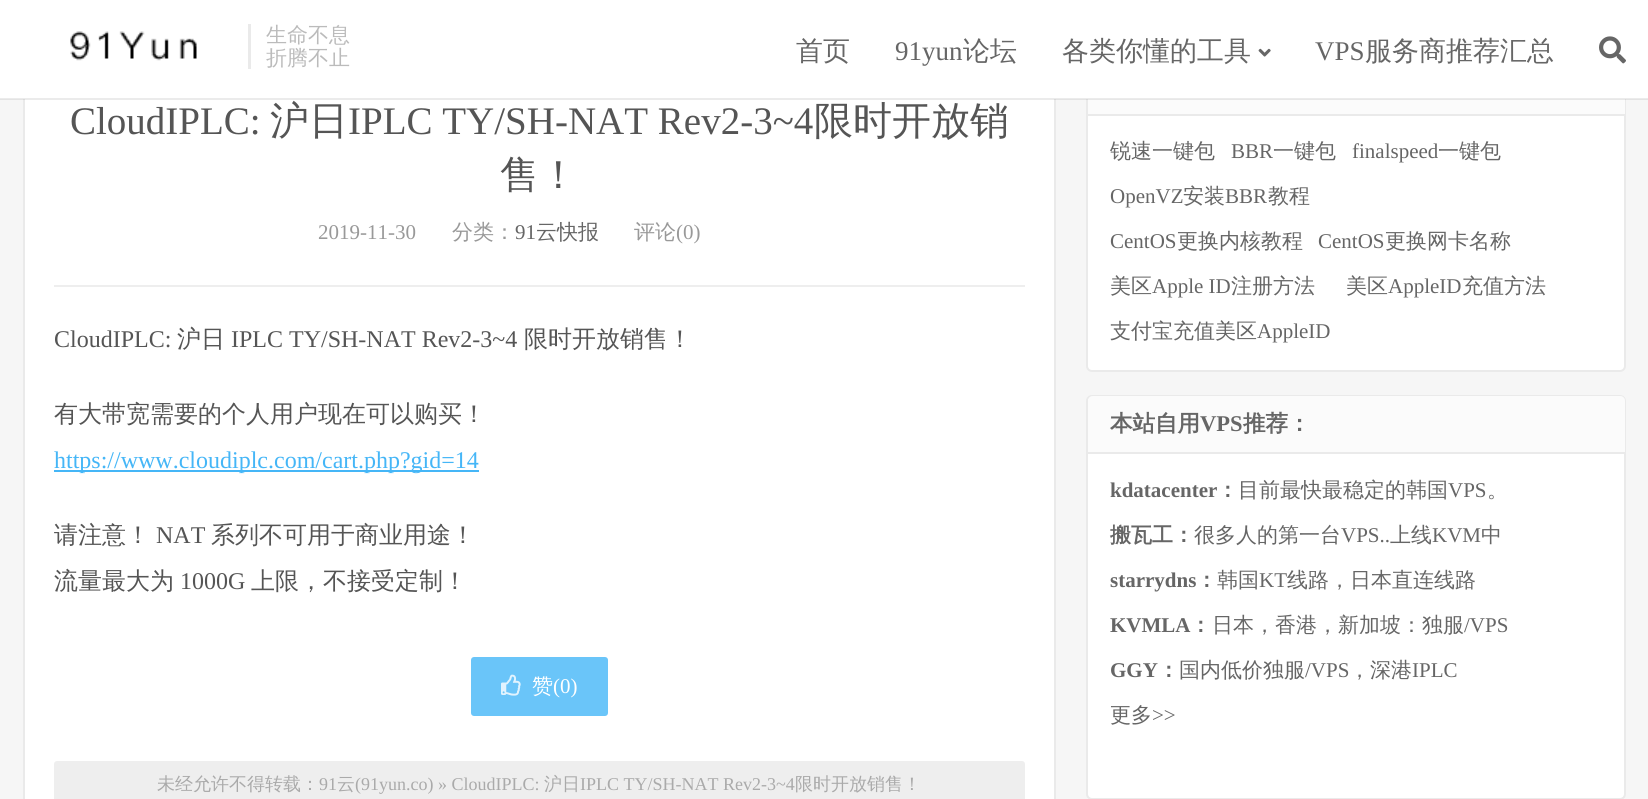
#include <cairo/cairo.h>
#include <math.h>
#include <stddef.h>

static cairo_t *cr;

static void use_color(int r, int g, int b) {
  cairo_set_source_rgb(cr, r / 255.0, g / 255.0, b / 255.0);
}

static void text(double x, double y, const char *s, const char *family, double size, int italic, int bold, int r, int g, int b) {
  cairo_select_font_face(cr, family, italic ? CAIRO_FONT_SLANT_ITALIC : CAIRO_FONT_SLANT_NORMAL,
    bold ? CAIRO_FONT_WEIGHT_BOLD : CAIRO_FONT_WEIGHT_NORMAL);
  cairo_set_font_size(cr, size);
  use_color(r, g, b);
  cairo_move_to(cr, x, y);
  cairo_show_text(cr, s);
}

static void box(double x, double y, double w, double h, int r, int g, int b) {
  use_color(r, g, b);
  cairo_rectangle(cr, x, y, w, h);
  cairo_fill(cr);
}

static void round_rect(double x, double y, double w, double h, double r) {
  cairo_new_sub_path(cr);
  cairo_arc(cr, x + w - r, y + h - r, r, 0, M_PI / 2);
  cairo_arc(cr, x + r, y + h - r, r, M_PI / 2, M_PI);
  cairo_arc(cr, x + r, y + r, r, M_PI, 1.5 * M_PI);
  cairo_arc(cr, x + w - r, y + r, r, 1.5 * M_PI, 2 * M_PI);
  cairo_close_path(cr);
}

static void picture(const char *path, double x, double y, double w, double h) {
  cairo_surface_t *image = cairo_image_surface_create_from_png(path);
  cairo_save(cr);
  cairo_set_source_surface(cr, image, x, y);
  cairo_rectangle(cr, x, y, w, h);
  cairo_fill(cr);
  cairo_restore(cr);
  cairo_surface_destroy(image);
}

static void draw(void) {
  use_color(246, 246, 246);
  cairo_paint(cr);
  box(25, 99, 1029, 700, 255, 255, 255);
  cairo_rectangle(cr, 24, 57, 1031, 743);
  use_color(234, 234, 234);
  cairo_stroke(cr);
  use_color(255, 255, 255);
  round_rect(1087, 57, 538, 314, 5);
  cairo_fill_preserve(cr);
  use_color(234, 234, 234);
  cairo_stroke(cr);
  box(0, 0, 1648, 99, 255, 255, 255);
  box(1088, 99, 537, 15, 251, 251, 251);
  cairo_set_source_rgba(cr, 0, 0, 0, 0.08);
  cairo_rectangle(cr, 0, 98, 1648, 2);
  cairo_fill(cr);
  picture("img_01.png", 70, 31, 127, 30);
  box(248, 24, 3, 45, 234, 234, 234);
  picture("img_02.png", 1258, 48, 13, 9);
  picture("img_03.png", 1599, 36, 27, 28);
  box(54, 285, 971, 2, 238, 238, 238);
  box(54, 470, 425, 2, 69, 182, 247);
  use_color(106, 197, 249);
  round_rect(471, 657, 137, 59, 3);
  cairo_fill(cr);
  picture("img_04.png", 501, 674, 20, 22);
  use_color(238, 238, 238);
  round_rect(54, 761, 971, 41, 3);
  cairo_fill(cr);
  box(1088, 114, 537, 2, 234, 234, 234);
  use_color(255, 255, 255);
  round_rect(1087, 396, 538, 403, 5);
  cairo_fill_preserve(cr);
  use_color(234, 234, 234);
  cairo_stroke(cr);
  use_color(251, 251, 251);
  cairo_new_path(cr);
  cairo_move_to(cr, 1093, 396);
  cairo_line_to(cr, 1620, 396);
  cairo_curve_to(cr, 1623, 396, 1625, 398, 1625, 401);
  cairo_line_to(cr, 1625, 453);
  cairo_line_to(cr, 1088, 453);
  cairo_line_to(cr, 1088, 401);
  cairo_curve_to(cr, 1088, 398, 1090, 396, 1093, 396);
  cairo_close_path(cr);
  cairo_fill(cr);
  box(1088, 452, 537, 2, 234, 234, 234);
  text(266, 42, "生命不息", "WenQuanYi Zen Hei Medium", 21, 0, 0, 187, 187, 187);
  text(266, 65, "折腾不止", "WenQuanYi Zen Hei Medium", 21, 0, 0, 187, 187, 187);
  text(796, 60, "首页", "WenQuanYi Zen Hei Medium", 27, 0, 0, 102, 102, 102);
  text(895, 60, "91yun", "Liberation Serif", 27, 0, 0, 102, 102, 102);
  text(963, 60, "论坛", "WenQuanYi Zen Hei Medium", 27, 0, 0, 102, 102, 102);
  text(1062, 60, "各类你懂的工具", "WenQuanYi Zen Hei Medium", 27, 0, 0, 102, 102, 102);
  text(1315, 60, "VPS", "Liberation Serif", 27, 0, 0, 102, 102, 102);
  text(1365, 60, "服务商推荐汇总", "WenQuanYi Zen Hei Medium", 27, 0, 0, 102, 102, 102);
  text(70, 134, "CloudIPLC:", "Liberation Serif", 39, 0, 0, 85, 85, 85);
  text(270, 134, "沪日", "WenQuanYi Zen Hei Medium", 39, 0, 0, 85, 85, 85);
  text(348, 134, "IPLC TY/SH-NAT Rev2-3~4", "Liberation Serif", 39, 0, 0, 85, 85, 85);
  text(814, 134, "限时开放销", "WenQuanYi Zen Hei Medium", 39, 0, 0, 85, 85, 85);
  text(500, 188, "售！", "WenQuanYi Zen Hei Medium", 39, 0, 0, 85, 85, 85);
  text(318, 239, "2019-11-30", "Liberation Serif", 21, 0, 0, 153, 153, 153);
  text(452, 239, "分类：", "WenQuanYi Zen Hei Medium", 21, 0, 0, 153, 153, 153);
  text(515, 239, "91", "Liberation Serif", 21, 0, 0, 102, 102, 102);
  text(536, 239, "云快报", "WenQuanYi Zen Hei Medium", 21, 0, 0, 102, 102, 102);
  text(634, 239, "评论", "WenQuanYi Zen Hei Medium", 21, 0, 0, 153, 153, 153);
  text(676, 239, "(0)", "Liberation Serif", 21, 0, 0, 153, 153, 153);
  text(54, 347, "CloudIPLC:", "Liberation Serif", 24, 0, 0, 85, 85, 85);
  text(177, 347, "沪日", "WenQuanYi Zen Hei Medium", 24, 0, 0, 85, 85, 85);
  text(231, 347, "IPLC TY/SH-NAT Rev2-3~4", "Liberation Serif", 24, 0, 0, 85, 85, 85);
  text(524, 347, "限时开放销售！", "WenQuanYi Zen Hei Medium", 24, 0, 0, 85, 85, 85);
  text(54, 422, "有大带宽需要的个人用户现在可以购买！", "WenQuanYi Zen Hei Medium", 24, 0, 0, 85, 85, 85);
  text(54, 468, "https://www.cloudiplc.com/cart.php?gid=14", "Liberation Serif", 24, 0, 0, 69, 182, 247);
  text(54, 543, "请注意！", "WenQuanYi Zen Hei Medium", 24, 0, 0, 85, 85, 85);
  text(156, 543, "NAT", "Liberation Serif", 24, 0, 0, 85, 85, 85);
  text(211, 543, "系列不可用于商业用途！", "WenQuanYi Zen Hei Medium", 24, 0, 0, 85, 85, 85);
  text(54, 589, "流量最大为", "WenQuanYi Zen Hei Medium", 24, 0, 0, 85, 85, 85);
  text(180, 589, "1000G", "Liberation Serif", 24, 0, 0, 85, 85, 85);
  text(251, 589, "上限，不接受定制！", "WenQuanYi Zen Hei Medium", 24, 0, 0, 85, 85, 85);
  text(532, 693, "赞", "WenQuanYi Zen Hei Medium", 21, 0, 0, 255, 255, 255);
  text(553, 693, "(0)", "Liberation Serif", 21, 0, 0, 255, 255, 255);
  text(157, 790, "未经允许不得转载：", "WenQuanYi Zen Hei Medium", 18, 0, 0, 170, 170, 170);
  text(319, 790, "91", "Liberation Serif", 18, 0, 0, 170, 170, 170);
  text(337, 790, "云", "WenQuanYi Zen Hei Medium", 18, 0, 0, 170, 170, 170);
  text(355, 790, "(91yun.co) » CloudIPLC:", "Liberation Serif", 18, 0, 0, 170, 170, 170);
  text(544, 790, "沪日", "WenQuanYi Zen Hei Medium", 18, 0, 0, 170, 170, 170);
  text(580, 790, "IPLC TY/SH-NAT Rev2-3~4", "Liberation Serif", 18, 0, 0, 170, 170, 170);
  text(795, 790, "限时开放销售！", "WenQuanYi Zen Hei Medium", 18, 0, 0, 170, 170, 170);
  text(1110, 158, "锐速一键包", "WenQuanYi Zen Hei Medium", 21, 0, 0, 102, 102, 102);
  text(1231, 158, "BBR", "Liberation Serif", 21, 0, 0, 102, 102, 102);
  text(1273, 158, "一键包", "WenQuanYi Zen Hei Medium", 21, 0, 0, 102, 102, 102);
  text(1352, 158, "finalspeed", "Liberation Serif", 21, 0, 0, 102, 102, 102);
  text(1438, 158, "一键包", "WenQuanYi Zen Hei Medium", 21, 0, 0, 102, 102, 102);
  text(1110, 203, "OpenVZ", "Liberation Serif", 21, 0, 0, 102, 102, 102);
  text(1183, 203, "安装", "WenQuanYi Zen Hei Medium", 21, 0, 0, 102, 102, 102);
  text(1225, 203, "BBR", "Liberation Serif", 21, 0, 0, 102, 102, 102);
  text(1268, 203, "教程", "WenQuanYi Zen Hei Medium", 21, 0, 0, 102, 102, 102);
  text(1110, 248, "CentOS", "Liberation Serif", 21, 0, 0, 102, 102, 102);
  text(1177, 248, "更换内核教程", "WenQuanYi Zen Hei Medium", 21, 0, 0, 102, 102, 102);
  text(1318, 248, "CentOS", "Liberation Serif", 21, 0, 0, 102, 102, 102);
  text(1385, 248, "更换网卡名称", "WenQuanYi Zen Hei Medium", 21, 0, 0, 102, 102, 102);
  text(1110, 293, "美区", "WenQuanYi Zen Hei Medium", 21, 0, 0, 102, 102, 102);
  text(1152, 293, "Apple ID", "Liberation Serif", 21, 0, 0, 102, 102, 102);
  text(1231, 293, "注册方法", "WenQuanYi Zen Hei Medium", 21, 0, 0, 102, 102, 102);
  text(1346, 293, "美区", "WenQuanYi Zen Hei Medium", 21, 0, 0, 102, 102, 102);
  text(1388, 293, "AppleID", "Liberation Serif", 21, 0, 0, 102, 102, 102);
  text(1462, 293, "充值方法", "WenQuanYi Zen Hei Medium", 21, 0, 0, 102, 102, 102);
  text(1110, 338, "支付宝充值美区", "WenQuanYi Zen Hei Medium", 21, 0, 0, 102, 102, 102);
  text(1257, 338, "AppleID", "Liberation Serif", 21, 0, 0, 102, 102, 102);
  text(1110, 431, "本站自用", "WenQuanYi Zen Hei", 22.5, 0, 1, 102, 102, 102);
  text(1200, 431, "VPS", "Liberation Serif", 22.5, 0, 1, 102, 102, 102);
  text(1243, 431, "推荐：", "WenQuanYi Zen Hei", 22.5, 0, 1, 102, 102, 102);
  text(1110, 497, "kdatacenter", "Liberation Serif", 21, 0, 1, 102, 102, 102);
  text(1217, 497, "：", "WenQuanYi Zen Hei", 21, 0, 1, 102, 102, 102);
  text(1238, 497, "目前最快最稳定的韩国", "WenQuanYi Zen Hei Medium", 21, 0, 0, 102, 102, 102);
  text(1448, 497, "VPS", "Liberation Serif", 21, 0, 0, 102, 102, 102);
  text(1487, 497, "。", "WenQuanYi Zen Hei Medium", 21, 0, 0, 102, 102, 102);
  text(1110, 542, "搬瓦工：", "WenQuanYi Zen Hei", 21, 0, 1, 102, 102, 102);
  text(1194, 542, "很多人的第一台", "WenQuanYi Zen Hei Medium", 21, 0, 0, 102, 102, 102);
  text(1341, 542, "VPS..", "Liberation Serif", 21, 0, 0, 102, 102, 102);
  text(1390, 542, "上线", "WenQuanYi Zen Hei Medium", 21, 0, 0, 102, 102, 102);
  text(1432, 542, "KVM", "Liberation Serif", 21, 0, 0, 102, 102, 102);
  text(1481, 542, "中", "WenQuanYi Zen Hei Medium", 21, 0, 0, 102, 102, 102);
  text(1110, 587, "starrydns", "Liberation Serif", 21, 0, 1, 102, 102, 102);
  text(1196, 587, "：", "WenQuanYi Zen Hei", 21, 0, 1, 102, 102, 102);
  text(1217, 587, "韩国", "WenQuanYi Zen Hei Medium", 21, 0, 0, 102, 102, 102);
  text(1259, 587, "KT", "Liberation Serif", 21, 0, 0, 102, 102, 102);
  text(1287, 587, "线路，日本直连线路", "WenQuanYi Zen Hei Medium", 21, 0, 0, 102, 102, 102);
  text(1110, 632, "KVMLA", "Liberation Serif", 21, 0, 1, 102, 102, 102);
  text(1190, 632, "：", "WenQuanYi Zen Hei", 21, 0, 1, 102, 102, 102);
  text(1212, 632, "日本，香港，新加坡：独服", "WenQuanYi Zen Hei Medium", 21, 0, 0, 102, 102, 102);
  text(1464, 632, "/VPS", "Liberation Serif", 21, 0, 0, 102, 102, 102);
  text(1110, 677, "GGY", "Liberation Serif", 21, 0, 1, 102, 102, 102);
  text(1158, 677, "：", "WenQuanYi Zen Hei", 21, 0, 1, 102, 102, 102);
  text(1179, 677, "国内低价独服", "WenQuanYi Zen Hei Medium", 21, 0, 0, 102, 102, 102);
  text(1305, 677, "/VPS", "Liberation Serif", 21, 0, 0, 102, 102, 102);
  text(1349, 677, "，深港", "WenQuanYi Zen Hei Medium", 21, 0, 0, 102, 102, 102);
  text(1412, 677, "IPLC", "Liberation Serif", 21, 0, 0, 102, 102, 102);
  text(1110, 722, "更多", "WenQuanYi Zen Hei Medium", 21, 0, 0, 102, 102, 102);
  text(1152, 722, ">>", "Liberation Serif", 21, 0, 0, 102, 102, 102);
}

int main(void) {
  cairo_surface_t *surface = cairo_image_surface_create(CAIRO_FORMAT_RGB24, 1648, 799);
  cr = cairo_create(surface);
  cairo_font_options_t *options = cairo_font_options_create();
  cairo_font_options_set_hint_metrics(options, CAIRO_HINT_METRICS_OFF);
  cairo_font_options_set_hint_style(options, CAIRO_HINT_STYLE_NONE);
  cairo_set_font_options(cr, options);
  cairo_set_miter_limit(cr, 4);
  draw();
  cairo_surface_write_to_png(surface, "out.png");
  cairo_font_options_destroy(options);
  cairo_destroy(cr);
  cairo_surface_destroy(surface);
  return 0;
}
